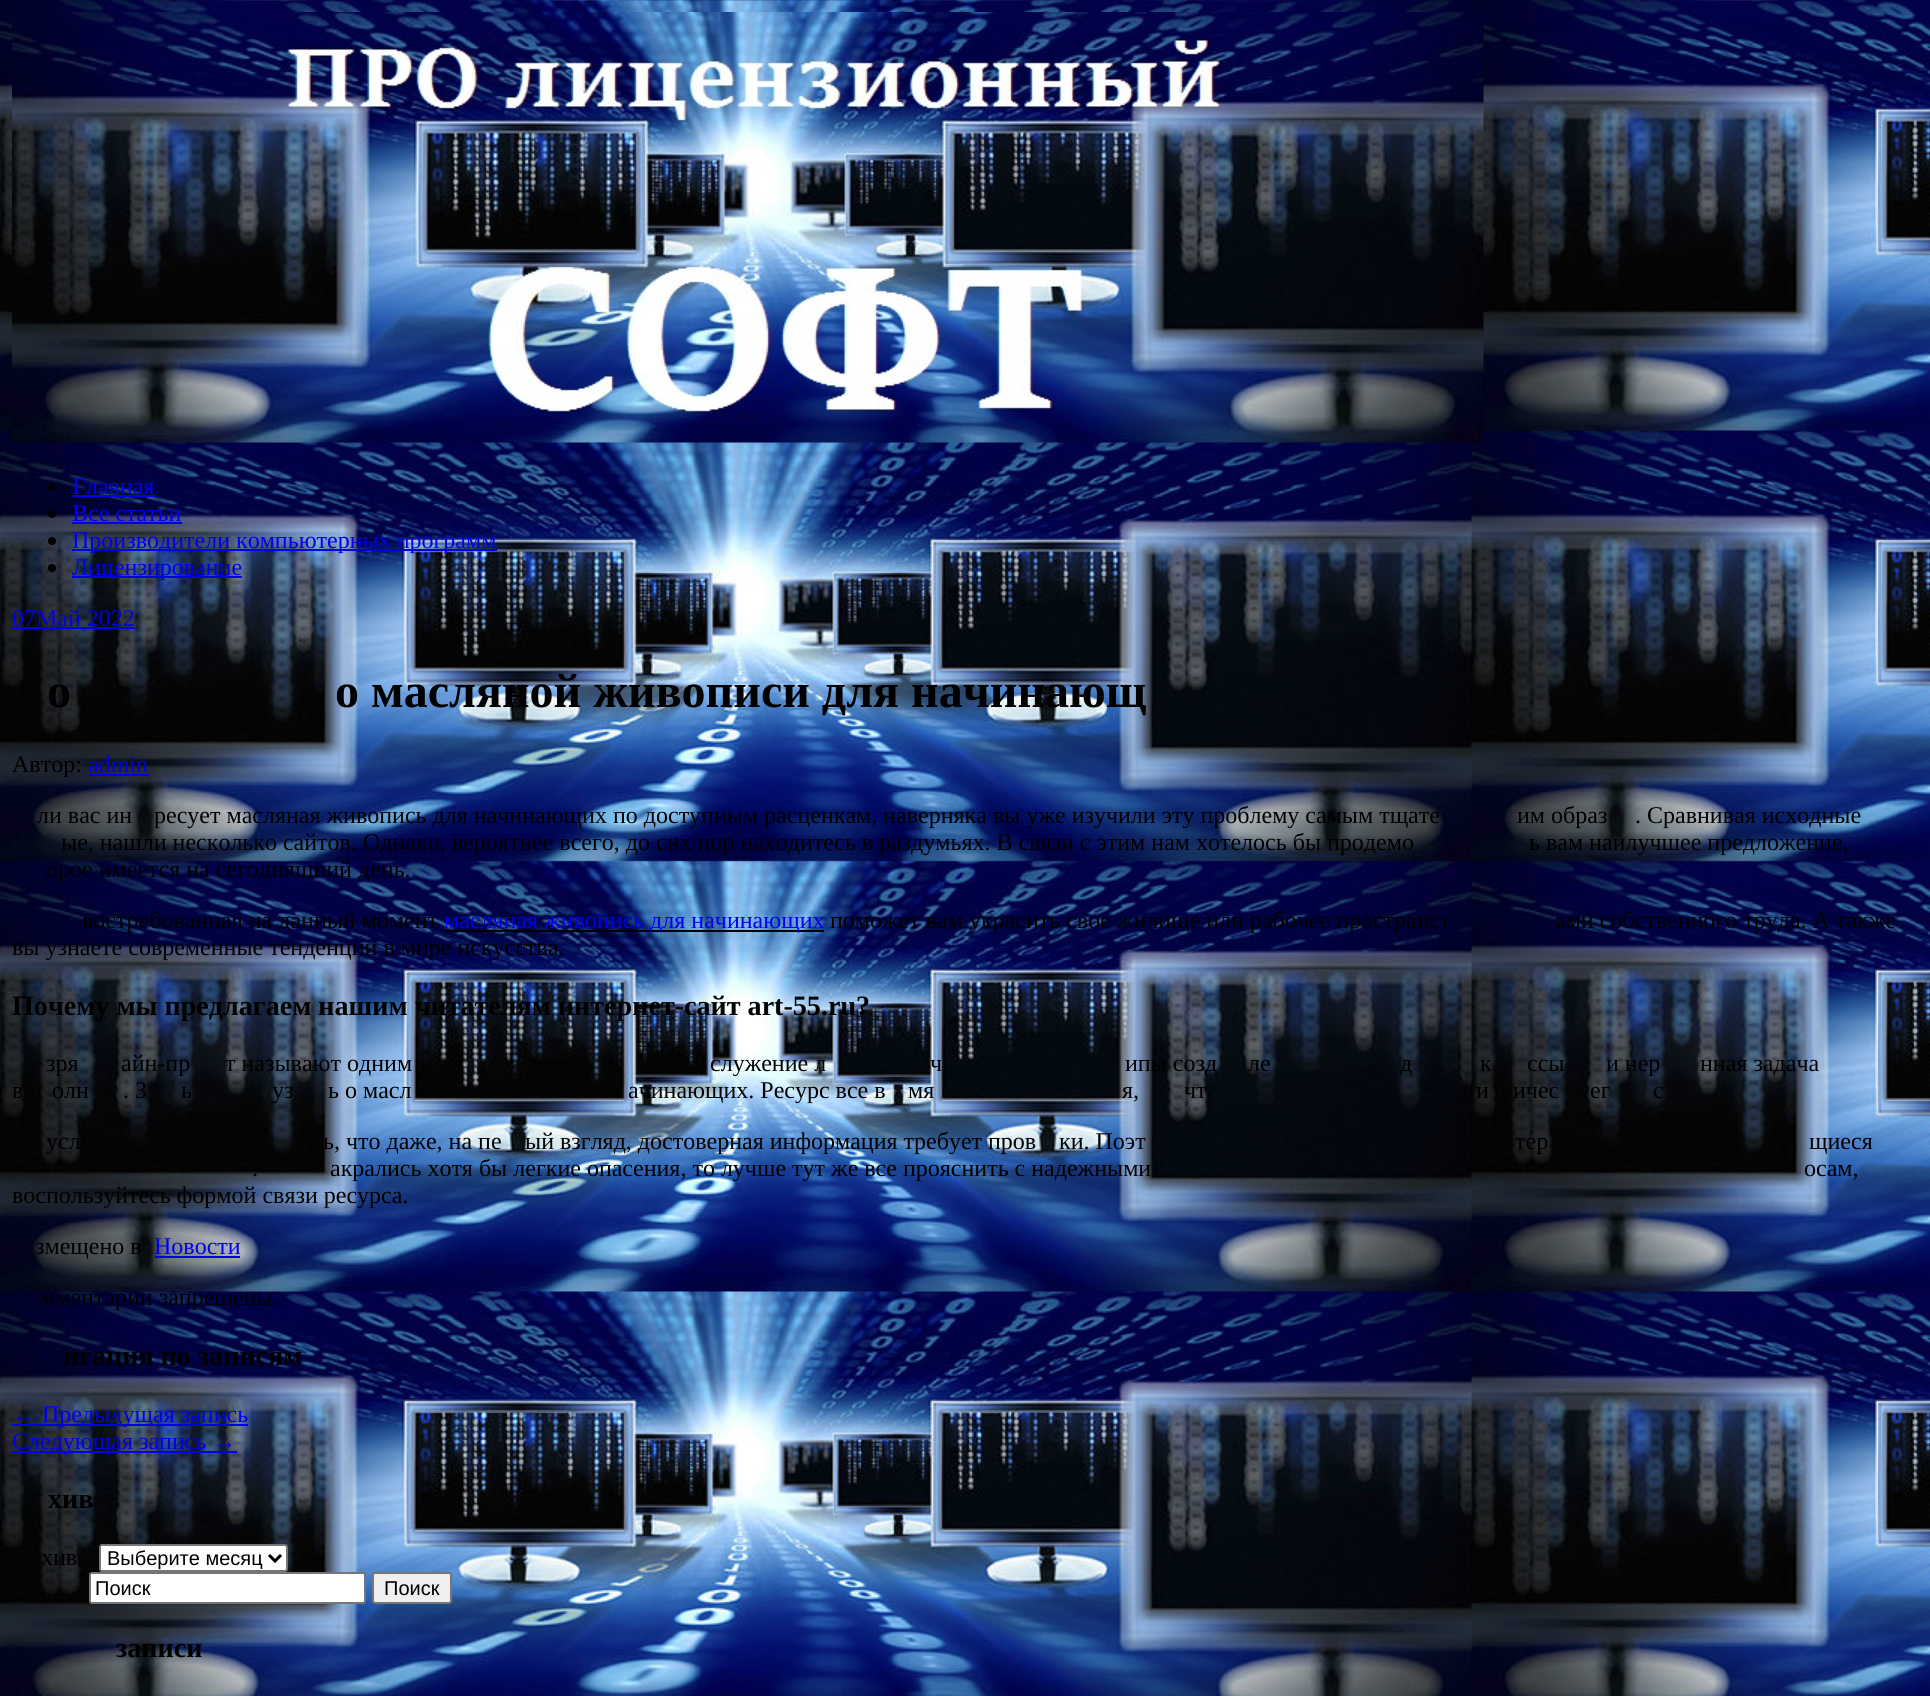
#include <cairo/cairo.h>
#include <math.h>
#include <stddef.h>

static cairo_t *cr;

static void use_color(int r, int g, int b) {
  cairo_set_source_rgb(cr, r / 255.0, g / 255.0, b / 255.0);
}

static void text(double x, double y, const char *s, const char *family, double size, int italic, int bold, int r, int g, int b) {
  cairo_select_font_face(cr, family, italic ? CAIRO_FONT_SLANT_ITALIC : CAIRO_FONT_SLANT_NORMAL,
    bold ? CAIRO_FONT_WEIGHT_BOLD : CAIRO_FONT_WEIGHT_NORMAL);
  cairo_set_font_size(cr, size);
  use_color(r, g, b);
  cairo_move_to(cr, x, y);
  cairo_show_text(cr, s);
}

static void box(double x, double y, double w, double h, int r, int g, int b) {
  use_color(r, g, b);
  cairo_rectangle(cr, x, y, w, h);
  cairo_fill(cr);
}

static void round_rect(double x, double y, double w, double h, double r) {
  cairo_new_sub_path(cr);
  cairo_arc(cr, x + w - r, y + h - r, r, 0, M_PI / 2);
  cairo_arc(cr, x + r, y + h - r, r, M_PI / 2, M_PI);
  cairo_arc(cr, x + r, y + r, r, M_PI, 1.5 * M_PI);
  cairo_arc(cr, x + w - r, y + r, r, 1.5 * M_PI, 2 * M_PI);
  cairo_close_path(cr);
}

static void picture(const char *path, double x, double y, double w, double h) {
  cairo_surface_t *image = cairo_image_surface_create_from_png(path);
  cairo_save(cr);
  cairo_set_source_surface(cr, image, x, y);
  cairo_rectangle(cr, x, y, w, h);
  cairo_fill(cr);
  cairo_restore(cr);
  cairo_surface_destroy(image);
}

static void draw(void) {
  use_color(255, 255, 255);
  cairo_paint(cr);
  picture("img_01.png", 0, 0, 1930, 1696);
  picture("img_02.png", 12, 12, 1472, 431);
  use_color(0, 0, 0);
  cairo_arc(cr, 52, 487, 4, 0, 2 * M_PI);
  cairo_fill(cr);
  box(72, 495, 83, 2, 0, 0, 238);
  use_color(0, 0, 0);
  cairo_arc(cr, 52, 514, 4, 0, 2 * M_PI);
  cairo_fill(cr);
  box(72, 522, 110, 2, 0, 0, 238);
  use_color(0, 0, 0);
  cairo_arc(cr, 52, 541, 4, 0, 2 * M_PI);
  cairo_fill(cr);
  box(72, 549, 425, 2, 0, 0, 238);
  use_color(0, 0, 0);
  cairo_arc(cr, 52, 568, 4, 0, 2 * M_PI);
  cairo_fill(cr);
  box(72, 576, 170, 2, 0, 0, 238);
  box(12, 627, 123, 2, 0, 0, 238);
  box(89, 774, 60, 2, 0, 0, 238);
  box(444, 930, 380, 2, 0, 0, 0);
  box(155, 1256, 85, 2, 0, 0, 238);
  box(12, 1424, 236, 2, 0, 0, 238);
  box(12, 1451, 225, 2, 0, 0, 238);
  use_color(255, 255, 255);
  round_rect(100, 1545, 187, 26, 2);
  cairo_fill_preserve(cr);
  use_color(118, 118, 118);
  cairo_stroke(cr);
  cairo_new_path(cr);
  cairo_move_to(cr, 269, 1555);
  cairo_line_to(cr, 275, 1561);
  cairo_line_to(cr, 281, 1555);
  use_color(0, 0, 0);
  cairo_set_line_width(cr, 3);
  cairo_stroke(cr);
  use_color(255, 255, 255);
  round_rect(90, 1573, 275, 30, 2);
  cairo_fill_preserve(cr);
  use_color(118, 118, 118);
  cairo_set_line_width(cr, 2);
  cairo_stroke(cr);
  use_color(239, 239, 239);
  round_rect(373, 1573, 78, 30, 2);
  cairo_fill_preserve(cr);
  use_color(118, 118, 118);
  cairo_stroke(cr);
  text(72, 494, "Главная", "Liberation Serif", 24, 0, 0, 0, 0, 238);
  text(72, 521, "Все статьи", "Liberation Serif", 24, 0, 0, 0, 0, 238);
  text(72, 548, "Производители компьютерных программ", "Liberation Serif", 24, 0, 0, 0, 0, 238);
  text(72, 575, "Лицензирование", "Liberation Serif", 24, 0, 0, 0, 0, 238);
  text(12, 626, "07Май 2022", "Liberation Serif", 24, 0, 0, 0, 0, 238);
  text(47, 707, "о", "Liberation Serif", 48, 0, 1, 0, 0, 0);
  text(335, 707, "о масляной живописи для начинающ", "Liberation Serif", 48, 0, 1, 0, 0, 0);
  text(12, 772, "Автор:", "Liberation Serif", 24, 0, 0, 0, 0, 0);
  text(88, 772, "admin", "Liberation Serif", 24, 0, 0, 0, 0, 238);
  text(37, 823, "ли вас ин", "Liberation Serif", 24, 0, 0, 0, 0, 0);
  text(154, 823, "ресует масляная живопись для начинающих по доступным расценкам, наверняка вы уже изучили эту проблему самым тщате", "Liberation Serif", 24, 0, 0, 0, 0, 0);
  text(1517, 823, "им образ", "Liberation Serif", 24, 0, 0, 0, 0, 0);
  text(1635, 823, ". Сравнивая исходные", "Liberation Serif", 24, 0, 0, 0, 0, 0);
  text(61, 850, "ые, нашли несколько сайтов. Однако, вероятнее всего, до сих пор находитесь в раздумьях. В связи с этим нам хотелось бы продемо", "Liberation Serif", 24, 0, 0, 0, 0, 0);
  text(1529, 850, "ь вам наилучшее предложение,", "Liberation Serif", 24, 0, 0, 0, 0, 0);
  text(46, 877, "орое имеется на сегодняшний день.", "Liberation Serif", 24, 0, 0, 0, 0, 0);
  text(82, 928, "востребованная на данный момент", "Liberation Serif", 24, 0, 0, 0, 0, 0);
  text(444, 928, "масляная живопись для начинающих", "Liberation Serif", 24, 0, 0, 0, 0, 238);
  text(830, 928, "поможет вам украсить свое жилище или рабочее пространст", "Liberation Serif", 24, 0, 0, 0, 0, 0);
  text(1555, 928, "ами собственного труда. А также", "Liberation Serif", 24, 0, 0, 0, 0, 0);
  text(12, 955, "вы узнаете современные тенденции в мире искусства.", "Liberation Serif", 24, 0, 0, 0, 0, 0);
  text(12, 1015, "Почему мы предлагаем нашим читателям интернет-сайт art-55.ru?", "Liberation Serif", 28.1, 0, 1, 0, 0, 0);
  text(46, 1071, "зря", "Liberation Serif", 24, 0, 0, 0, 0, 0);
  text(121, 1071, "айн-пр", "Liberation Serif", 24, 0, 0, 0, 0, 0);
  text(225, 1071, "т называют одним", "Liberation Serif", 24, 0, 0, 0, 0, 0);
  text(710, 1071, "служение л", "Liberation Serif", 24, 0, 0, 0, 0, 0);
  text(930, 1071, "ч", "Liberation Serif", 24, 0, 0, 0, 0, 0);
  text(1125, 1071, "ипы созд", "Liberation Serif", 24, 0, 0, 0, 0, 0);
  text(1248, 1071, "ле", "Liberation Serif", 24, 0, 0, 0, 0, 0);
  text(1400, 1071, "д", "Liberation Serif", 24, 0, 0, 0, 0, 0);
  text(1480, 1071, "к", "Liberation Serif", 24, 0, 0, 0, 0, 0);
  text(1527, 1071, "ссы", "Liberation Serif", 24, 0, 0, 0, 0, 0);
  text(1606, 1071, "и нер", "Liberation Serif", 24, 0, 0, 0, 0, 0);
  text(1700, 1071, "нная задача", "Liberation Serif", 24, 0, 0, 0, 0, 0);
  text(12, 1098, "в", "Liberation Serif", 24, 0, 0, 0, 0, 0);
  text(52, 1098, "олн", "Liberation Serif", 24, 0, 0, 0, 0, 0);
  text(123, 1098, ". З", "Liberation Serif", 24, 0, 0, 0, 0, 0);
  text(181, 1098, "ь", "Liberation Serif", 24, 0, 0, 0, 0, 0);
  text(272, 1098, "уз", "Liberation Serif", 24, 0, 0, 0, 0, 0);
  text(328, 1098, "ь о масл", "Liberation Serif", 24, 0, 0, 0, 0, 0);
  text(628, 1098, "ачинающих. Ресурс все в", "Liberation Serif", 24, 0, 0, 0, 0, 0);
  text(908, 1098, "мя", "Liberation Serif", 24, 0, 0, 0, 0, 0);
  text(1122, 1098, "я,", "Liberation Serif", 24, 0, 0, 0, 0, 0);
  text(1184, 1098, "чт", "Liberation Serif", 24, 0, 0, 0, 0, 0);
  text(1476, 1098, "и", "Liberation Serif", 24, 0, 0, 0, 0, 0);
  text(1513, 1098, "ичес", "Liberation Serif", 24, 0, 0, 0, 0, 0);
  text(1590, 1098, "ег", "Liberation Serif", 24, 0, 0, 0, 0, 0);
  text(1653, 1098, "с", "Liberation Serif", 24, 0, 0, 0, 0, 0);
  text(46, 1149, "усл", "Liberation Serif", 24, 0, 0, 0, 0, 0);
  text(323, 1149, "ь, что даже, на пе", "Liberation Serif", 24, 0, 0, 0, 0, 0);
  text(525, 1149, "ый взгляд, достоверная информация требует пров", "Liberation Serif", 24, 0, 0, 0, 0, 0);
  text(1059, 1149, "ки. Поэт", "Liberation Serif", 24, 0, 0, 0, 0, 0);
  text(1515, 1149, "тер", "Liberation Serif", 24, 0, 0, 0, 0, 0);
  text(1809, 1149, "щиеся", "Liberation Serif", 24, 0, 0, 0, 0, 0);
  text(252, 1176, ".", "Liberation Serif", 24, 0, 0, 0, 0, 0);
  text(330, 1176, "акрались хотя бы легкие опасения, то лучше тут же все прояснить с надежными", "Liberation Serif", 24, 0, 0, 0, 0, 0);
  text(1804, 1176, "осам,", "Liberation Serif", 24, 0, 0, 0, 0, 0);
  text(12, 1203, "воспользуйтесь формой связи ресурса.", "Liberation Serif", 24, 0, 0, 0, 0, 0);
  text(35, 1254, "змещено в", "Liberation Serif", 24, 0, 0, 0, 0, 0);
  text(154, 1254, "Новости", "Liberation Serif", 24, 0, 0, 0, 0, 238);
  text(40, 1305, "мментарии запрещены.", "Liberation Serif", 24, 0, 0, 0, 0, 0);
  text(63, 1365, "игация по записям", "Liberation Serif", 28.1, 0, 1, 0, 0, 0);
  text(12, 1422, "← Предыдущая запись", "Liberation Serif", 24, 0, 0, 0, 0, 238);
  text(12, 1449, "Следующая запись →", "Liberation Serif", 24, 0, 0, 0, 0, 238);
  text(48, 1508, "хив", "Liberation Serif", 28.1, 0, 1, 0, 0, 0);
  text(41, 1565, "хив", "Liberation Serif", 24, 0, 0, 0, 0, 0);
  text(107, 1565, "Выберите месяц", "Liberation Sans", 20, 0, 0, 0, 0, 0);
  text(95, 1595, "Поиск", "Liberation Sans", 20, 0, 0, 0, 0, 0);
  text(384, 1595, "Поиск", "Liberation Sans", 20, 0, 0, 0, 0, 0);
  text(116, 1657, "записи", "Liberation Serif", 28.1, 0, 1, 0, 0, 0);
}

int main(void) {
  cairo_surface_t *surface = cairo_image_surface_create(CAIRO_FORMAT_RGB24, 1930, 1696);
  cr = cairo_create(surface);
  cairo_font_options_t *options = cairo_font_options_create();
  cairo_font_options_set_hint_metrics(options, CAIRO_HINT_METRICS_OFF);
  cairo_font_options_set_hint_style(options, CAIRO_HINT_STYLE_NONE);
  cairo_set_font_options(cr, options);
  cairo_set_miter_limit(cr, 4);
  draw();
  cairo_surface_write_to_png(surface, "out.png");
  cairo_font_options_destroy(options);
  cairo_destroy(cr);
  cairo_surface_destroy(surface);
  return 0;
}
